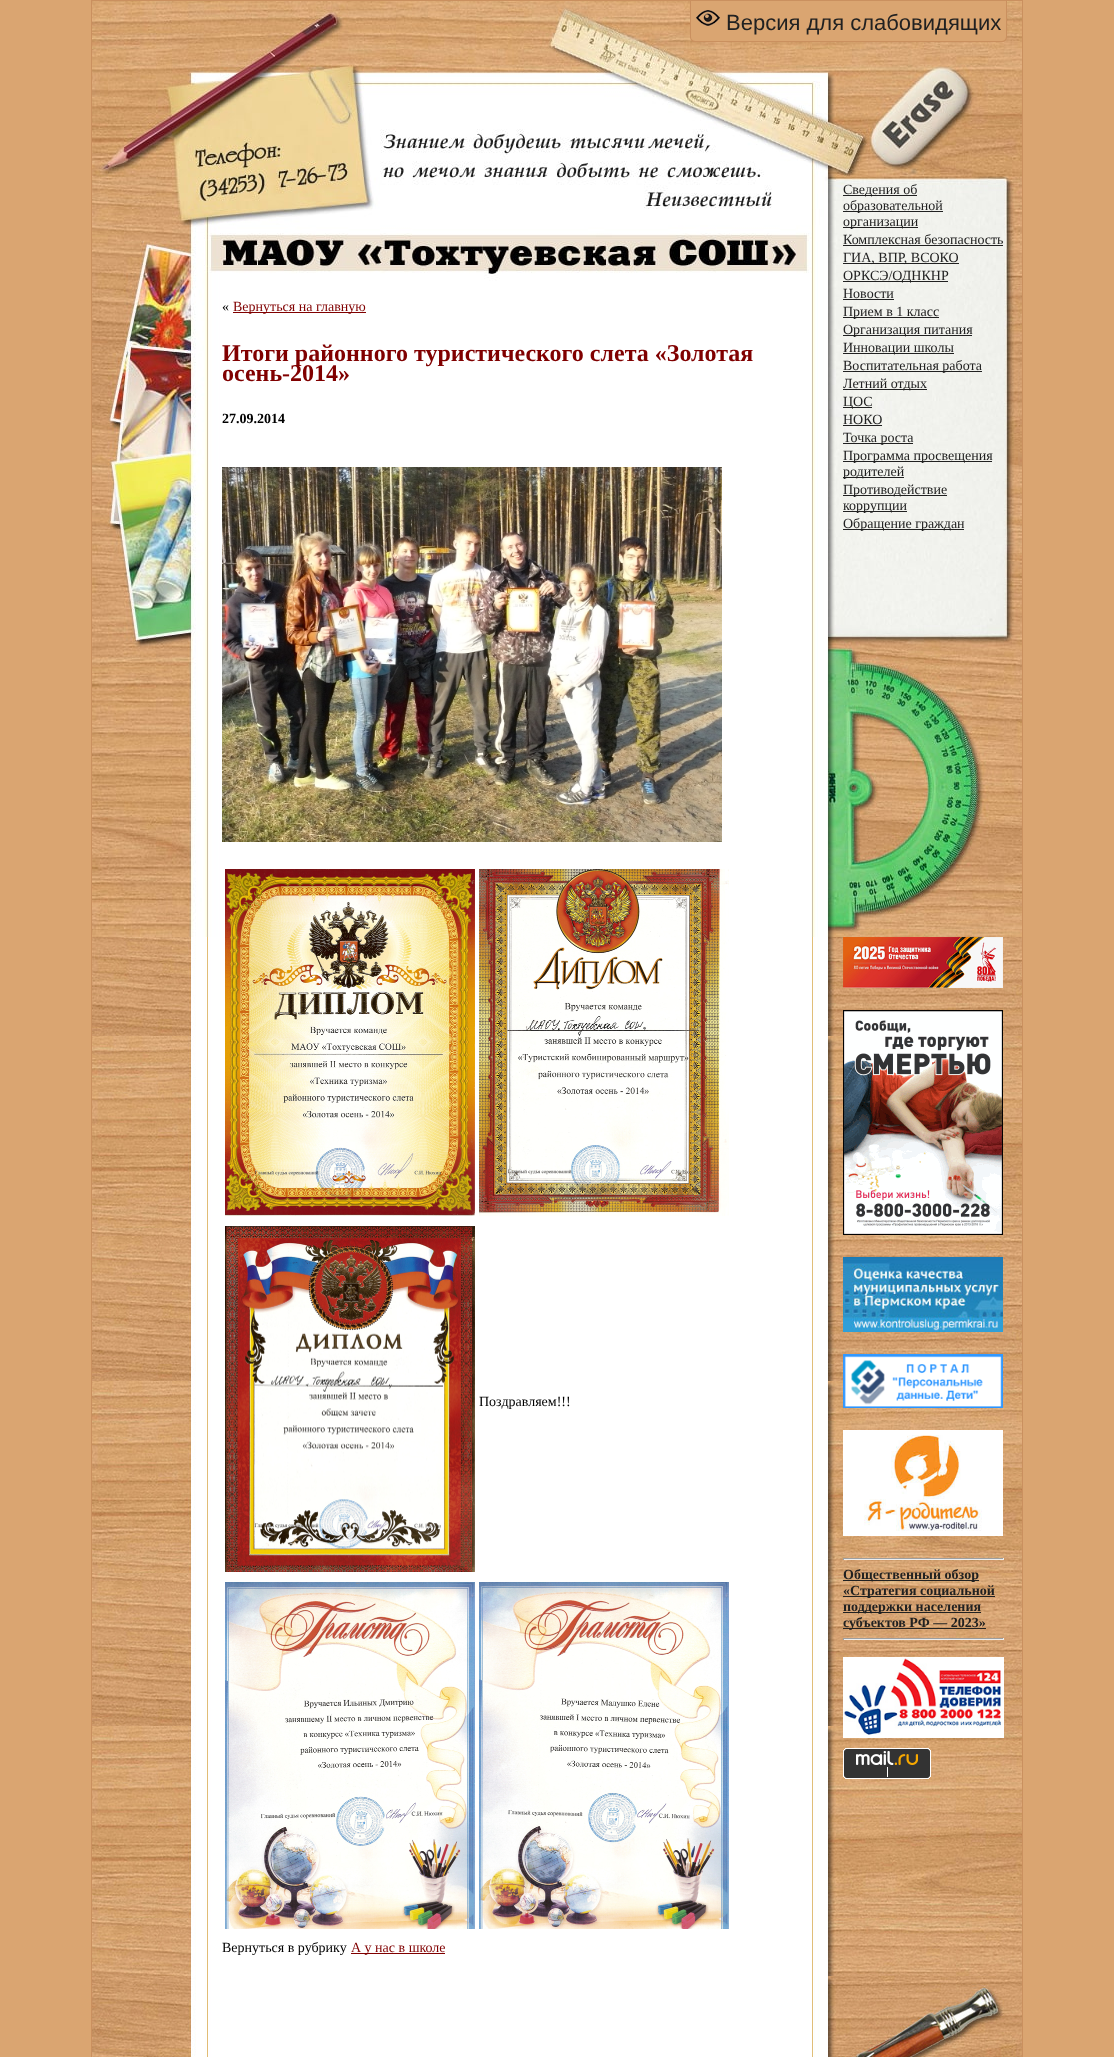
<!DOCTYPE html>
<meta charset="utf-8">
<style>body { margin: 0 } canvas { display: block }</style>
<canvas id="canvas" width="1114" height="2057"></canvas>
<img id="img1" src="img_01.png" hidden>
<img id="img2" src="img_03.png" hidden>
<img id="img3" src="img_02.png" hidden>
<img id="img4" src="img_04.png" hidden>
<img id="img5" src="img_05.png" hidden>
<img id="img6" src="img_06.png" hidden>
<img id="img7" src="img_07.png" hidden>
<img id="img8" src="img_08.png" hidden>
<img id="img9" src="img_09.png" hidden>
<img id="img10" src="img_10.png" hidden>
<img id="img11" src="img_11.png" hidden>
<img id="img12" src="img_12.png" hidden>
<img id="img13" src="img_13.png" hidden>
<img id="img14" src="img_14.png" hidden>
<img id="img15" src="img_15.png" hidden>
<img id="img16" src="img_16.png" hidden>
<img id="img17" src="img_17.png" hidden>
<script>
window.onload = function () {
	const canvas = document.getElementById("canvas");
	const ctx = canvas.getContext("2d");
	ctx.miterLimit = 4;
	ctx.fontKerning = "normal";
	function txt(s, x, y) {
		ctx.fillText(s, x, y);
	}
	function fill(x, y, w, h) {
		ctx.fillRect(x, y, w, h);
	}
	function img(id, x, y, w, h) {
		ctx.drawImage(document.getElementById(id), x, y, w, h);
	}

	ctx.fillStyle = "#DAA571";
	fill(0, 0, 1114, 2057);
	img("img1", 92, 937, 930, 1039);
	ctx.strokeStyle = "#CA905F";
	ctx.strokeRect(91.5, 0.5, 931, 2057);
	img("img2", 92, 1, 930, 936);
	ctx.beginPath();
	ctx.roundRect(691, 1, 315, 40, [0, 0, 4, 4]);
	ctx.fill();
	ctx.fillStyle = "#CA905F";
	ctx.beginPath();
	ctx.moveTo(690, 1);
	ctx.lineTo(1007, 1);
	ctx.lineTo(1007, 37);
	ctx.bezierCurveTo(1007, 40, 1005, 42, 1002, 42);
	ctx.lineTo(695, 42);
	ctx.bezierCurveTo(692, 42, 690, 40, 690, 37);
	ctx.closePath();
	ctx.moveTo(691, 1);
	ctx.lineTo(1006, 1);
	ctx.lineTo(1006, 37);
	ctx.bezierCurveTo(1006, 39, 1004, 41, 1002, 41);
	ctx.lineTo(695, 41);
	ctx.bezierCurveTo(693, 41, 691, 39, 691, 37);
	ctx.closePath();
	ctx.fill("evenodd");
	img("img3", 696, 10, 24, 16);
	ctx.fillStyle = "#800000";
	fill(233, 312, 133, 1);
	img("img4", 222, 467, 500, 375);
	img("img5", 225, 869, 250, 347);
	img("img6", 479, 869, 250, 347);
	img("img7", 225, 1226, 250, 346);
	img("img8", 225, 1582, 250, 347);
	img("img9", 479, 1582, 250, 347);
	fill(351, 1953, 94, 1);
	ctx.fillStyle = "#212121";
	fill(843, 195, 74, 1);
	fill(843, 211, 100, 1);
	fill(843, 227, 75, 1);
	fill(843, 245, 160, 1);
	fill(843, 263, 116, 1);
	fill(843, 281, 105, 1);
	fill(843, 299, 51, 1);
	fill(843, 317, 96, 1);
	fill(843, 335, 129, 1);
	fill(843, 353, 111, 1);
	fill(843, 371, 139, 1);
	fill(843, 389, 84, 1);
	fill(843, 407, 29, 1);
	fill(843, 425, 39, 1);
	fill(843, 443, 70, 1);
	fill(843, 461, 149, 1);
	fill(843, 477, 61, 1);
	fill(843, 495, 104, 1);
	fill(843, 511, 64, 1);
	fill(843, 529, 121, 1);
	img("img10", 843, 937, 160, 51);
	img("img11", 843, 1010, 160, 225);
	img("img12", 843, 1257, 160, 75);
	img("img13", 843, 1354, 160, 54);
	img("img14", 843, 1430, 160, 106);
	ctx.fillStyle = "#9F9F9F";
	fill(843, 1558, 161, 1);
	ctx.fillStyle = "#EEEEEE";
	fill(1003, 1558, 1, 2);
	fill(843, 1559, 161, 1);
	ctx.fillStyle = "#9F9F9F";
	fill(843, 1558, 1, 2);
	ctx.fillStyle = "#212121";
	fill(843, 1580, 136, 1);
	fill(843, 1596, 152, 1);
	fill(843, 1612, 138, 1);
	fill(843, 1628, 143, 1);
	ctx.fillStyle = "#9F9F9F";
	fill(843, 1638, 161, 1);
	ctx.fillStyle = "#EEEEEE";
	fill(1003, 1638, 1, 2);
	fill(843, 1639, 161, 1);
	ctx.fillStyle = "#9F9F9F";
	fill(843, 1638, 1, 2);
	img("img15", 843, 1657, 161, 81);
	img("img16", 843, 1748, 88, 31);
	img("img17", 92, 1976, 930, 81);
	ctx.font = "22px Liberation Sans";
	ctx.fillStyle = "#212121";
	txt("Версия для слабовидящих", 726, 30);
	ctx.font = "14px Liberation Serif";
	ctx.fillStyle = "#000000";
	txt("«", 222, 311);
	ctx.fillStyle = "#800000";
	txt("Вернуться на главную", 233, 311);
	ctx.font = "bold 24px Liberation Serif";
	txt("Итоги районного туристического слета «Золотая", 222, 361);
	txt("осень-2014»", 222, 381);
	ctx.font = "bold 14px Liberation Serif";
	ctx.fillStyle = "#000000";
	txt("27.09.2014", 222, 423);
	ctx.font = "14px Liberation Serif";
	txt("Поздравляем!!!", 479, 1406);
	txt("Вернуться в рубрику", 222, 1952);
	ctx.fillStyle = "#800000";
	txt("А у нас в школе", 351, 1952);
	ctx.fillStyle = "#212121";
	txt("Сведения об", 843, 194);
	txt("образовательной", 843, 210);
	txt("организации", 843, 226);
	txt("Комплексная безопасность", 843, 244);
	txt("ГИА, ВПР, ВСОКО", 843, 262);
	txt("ОРКСЭ/ОДНКНР", 843, 280);
	txt("Новости", 843, 298);
	txt("Прием в 1 класс", 843, 316);
	txt("Организация питания", 843, 334);
	txt("Инновации школы", 843, 352);
	txt("Воспитательная работа", 843, 370);
	txt("Летний отдых", 843, 388);
	txt("ЦОС", 843, 406);
	txt("НОКО", 843, 424);
	txt("Точка роста", 843, 442);
	txt("Программа просвещения", 843, 460);
	txt("родителей", 843, 476);
	txt("Противодействие", 843, 494);
	txt("коррупции", 843, 510);
	txt("Обращение граждан", 843, 528);
	ctx.font = "bold 14px Liberation Serif";
	txt("Общественный обзор", 843, 1579);
	txt("«Стратегия социальной", 843, 1595);
	txt("поддержки населения", 843, 1611);
	txt("субъектов РФ — 2023»", 843, 1627);
};
</script>
